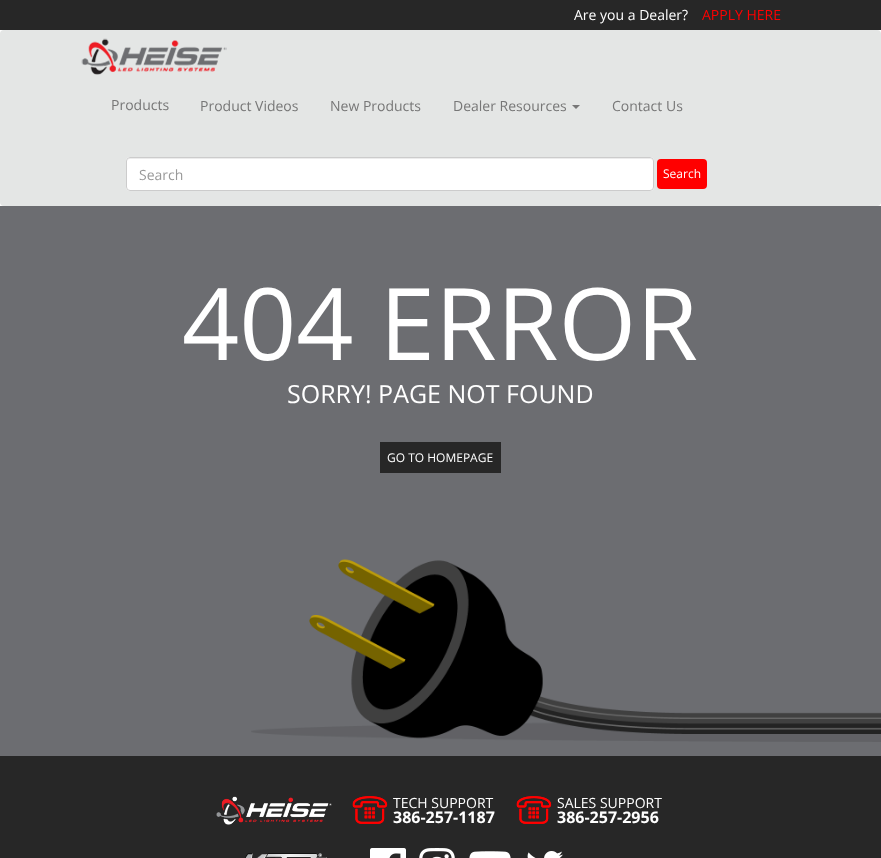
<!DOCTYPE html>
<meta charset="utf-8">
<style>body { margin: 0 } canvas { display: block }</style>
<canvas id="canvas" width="881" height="858"></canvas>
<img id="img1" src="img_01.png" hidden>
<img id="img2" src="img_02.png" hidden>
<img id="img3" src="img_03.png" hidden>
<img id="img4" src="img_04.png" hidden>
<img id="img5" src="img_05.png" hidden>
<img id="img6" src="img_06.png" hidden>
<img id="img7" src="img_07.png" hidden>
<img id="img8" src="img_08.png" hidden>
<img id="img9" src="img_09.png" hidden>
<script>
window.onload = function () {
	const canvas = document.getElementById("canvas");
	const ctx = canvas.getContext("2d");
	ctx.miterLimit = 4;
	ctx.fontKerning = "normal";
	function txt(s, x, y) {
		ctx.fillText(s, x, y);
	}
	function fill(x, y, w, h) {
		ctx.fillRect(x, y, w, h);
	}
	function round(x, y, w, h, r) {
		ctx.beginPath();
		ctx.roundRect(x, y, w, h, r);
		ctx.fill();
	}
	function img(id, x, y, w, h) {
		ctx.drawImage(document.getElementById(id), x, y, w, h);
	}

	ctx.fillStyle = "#FFFFFF";
	fill(0, 0, 881, 858);
	ctx.fillStyle = "#272727";
	fill(0, 0, 881, 30);
	ctx.fillStyle = "#E4E6E5";
	round(0, 30, 881, 176, 4);
	img("img1", 81, 38, 146, 37);
	ctx.fillStyle = "#777777";
	ctx.beginPath();
	ctx.moveTo(572, 105);
	ctx.lineTo(580, 105);
	ctx.lineTo(576, 109);
	ctx.closePath();
	ctx.fill();
	ctx.fillStyle = "#FFFFFF";
	round(126, 157, 528, 34, 4);
	ctx.fillStyle = "#ECECEC";
	ctx.beginPath();
	ctx.moveTo(130, 159);
	ctx.lineTo(650, 159);
	ctx.bezierCurveTo(652, 159, 653, 160, 653, 162);
	ctx.lineTo(652, 159);
	ctx.lineTo(650, 158);
	ctx.lineTo(130, 158);
	ctx.bezierCurveTo(128, 158, 127, 160, 127, 162);
	ctx.bezierCurveTo(127, 160, 128, 159, 130, 159);
	ctx.closePath();
	ctx.fill();
	ctx.beginPath();
	ctx.roundRect(126.5, 157.5, 527, 33, 3.5);
	ctx.strokeStyle = "#CCCCCC";
	ctx.stroke();
	ctx.fillStyle = "#FF0000";
	round(657, 159, 50, 30, 4);
	ctx.fillStyle = "#6C6D71";
	fill(0, 206, 881, 550);
	img("img2", 251, 559, 630, 183);
	ctx.fillStyle = "#272727";
	fill(380, 442, 121, 31);
	fill(0, 756, 881, 102);
	img("img3", 216, 796, 116, 29);
	img("img4", 352, 796, 36, 28);
	img("img4", 516, 796, 36, 28);
	img("img5", 245, 853, 82, 5);
	img("img6", 370, 848, 36, 10);
	img("img7", 419, 848, 36, 10);
	img("img8", 469, 851, 42, 7);
	img("img9", 527, 851, 36, 7);
	ctx.font = "14px Open Sans";
	ctx.fillStyle = "#FFFFFF";
	txt("Are you a Dealer?", 574, 20);
	ctx.fillStyle = "#FF0000";
	txt("APPLY HERE", 702, 20);
	ctx.fillStyle = "#777777";
	txt("Products", 111, 110);
	txt("Product Videos", 200, 111);
	txt("New Products", 330, 111);
	txt("Dealer Resources", 453, 111);
	txt("Contact Us", 612, 111);
	ctx.fillStyle = "#999999";
	txt("Search", 139, 180);
	ctx.font = "12px Open Sans";
	ctx.fillStyle = "#FFFFFF";
	txt("Search", 663, 178);
	ctx.font = "100px Open Sans";
	txt("404 ERROR", 182, 360);
	ctx.font = "25px Open Sans";
	txt("SORRY! PAGE NOT FOUND", 287, 403);
	ctx.font = "12px Open Sans";
	txt("GO TO HOMEPAGE", 387, 462);
	ctx.font = "14px Open Sans";
	txt("TECH SUPPORT", 393, 808);
	ctx.font = "bold 16px Open Sans";
	txt("386-257-1187", 393, 823);
	ctx.font = "14px Open Sans";
	txt("SALES SUPPORT", 557, 808);
	ctx.font = "bold 16px Open Sans";
	txt("386-257-2956", 557, 823);
};
</script>
